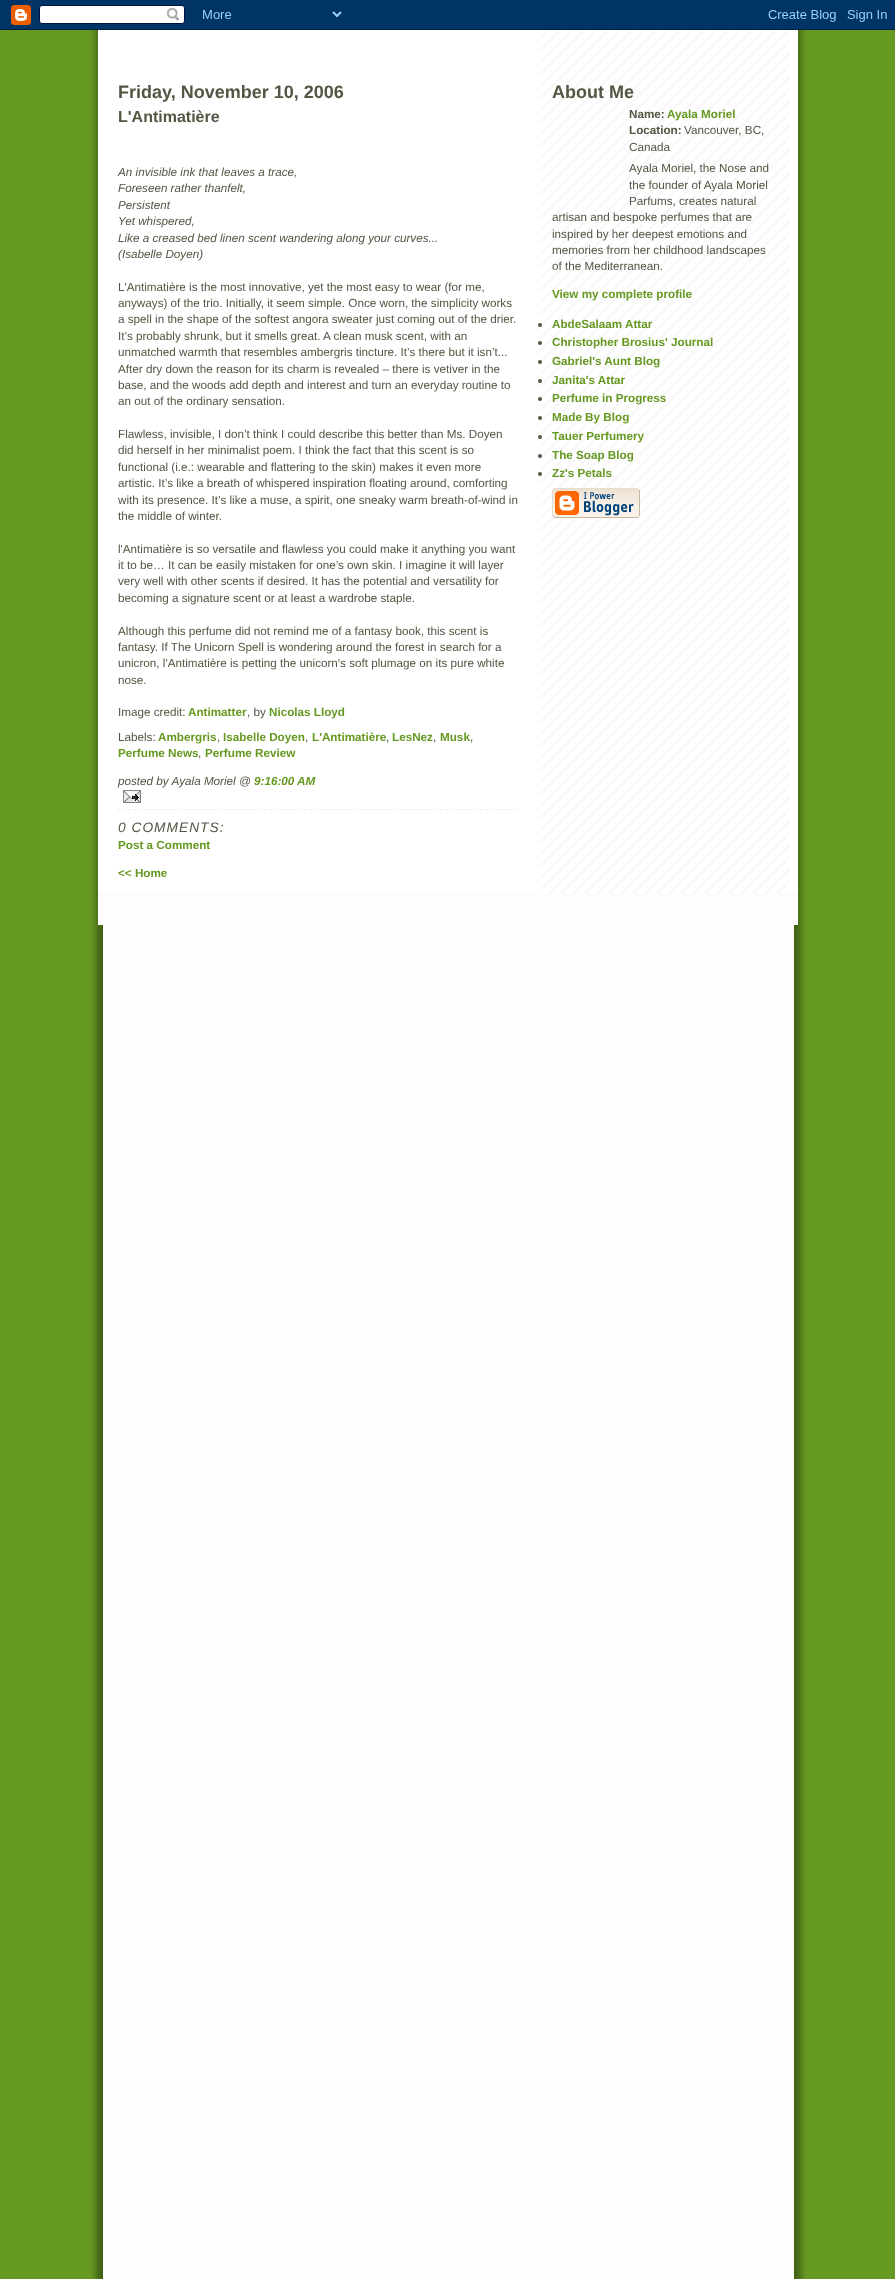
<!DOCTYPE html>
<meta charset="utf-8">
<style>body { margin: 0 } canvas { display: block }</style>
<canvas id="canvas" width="895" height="2279"></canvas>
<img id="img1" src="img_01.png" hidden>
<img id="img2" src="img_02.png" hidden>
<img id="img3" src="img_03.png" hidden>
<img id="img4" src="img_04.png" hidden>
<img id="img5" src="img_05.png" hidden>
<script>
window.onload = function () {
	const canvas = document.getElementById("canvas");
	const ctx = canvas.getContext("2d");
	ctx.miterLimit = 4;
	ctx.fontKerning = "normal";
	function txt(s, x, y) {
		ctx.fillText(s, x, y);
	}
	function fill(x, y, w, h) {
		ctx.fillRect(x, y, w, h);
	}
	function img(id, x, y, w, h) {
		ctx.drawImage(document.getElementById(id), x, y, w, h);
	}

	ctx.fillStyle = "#669922";
	fill(0, 0, 895, 2279);
	img("img1", 91, 30, 715, 2249);
	img("img2", 0, 0, 895, 30);
	ctx.fillStyle = "#FFFFFF";
	fill(98, 30, 700, 863);
	img("img3", 540, 30, 250, 863);
	img("img4", 123, 790, 18, 13);
	ctx.beginPath();
	ctx.moveTo(118, 809.5);
	ctx.lineTo(518, 809.5);
	ctx.strokeStyle = "#EEEEDD";
	ctx.setLineDash([3, 2.03]);
	ctx.stroke();
	ctx.fillStyle = "#555544";
	ctx.beginPath();
	ctx.arc(540, 325, 2, 0, Math.PI * 2);
	ctx.fill();
	ctx.beginPath();
	ctx.arc(540, 343, 2, 0, Math.PI * 2);
	ctx.fill();
	ctx.beginPath();
	ctx.arc(540, 362, 2, 0, Math.PI * 2);
	ctx.fill();
	ctx.beginPath();
	ctx.arc(540, 381, 2, 0, Math.PI * 2);
	ctx.fill();
	ctx.beginPath();
	ctx.arc(540, 399, 2, 0, Math.PI * 2);
	ctx.fill();
	ctx.beginPath();
	ctx.arc(540, 418, 2, 0, Math.PI * 2);
	ctx.fill();
	ctx.beginPath();
	ctx.arc(540, 437, 2, 0, Math.PI * 2);
	ctx.fill();
	ctx.beginPath();
	ctx.arc(540, 456, 2, 0, Math.PI * 2);
	ctx.fill();
	ctx.beginPath();
	ctx.arc(540, 474, 2, 0, Math.PI * 2);
	ctx.fill();
	img("img5", 552, 488, 88, 30);
	ctx.fillStyle = "#FDFDFD";
	fill(98, 894, 700, 31);
	ctx.fillStyle = "#F9F9F9";
	fill(98, 893, 700, 1);
	ctx.font = "bold 18px Liberation Sans";
	ctx.fillStyle = "#555544";
	txt("Friday, November 10, 2006", 118, 98);
	ctx.font = "bold 16px Liberation Sans";
	txt("L'Antimatière", 118, 122);
	ctx.font = "italic 11.7px Liberation Sans";
	txt("An invisible ink that leaves a trace,", 118, 176);
	txt("Foreseen rather thanfelt,", 118, 192);
	txt("Persistent", 118, 209);
	txt("Yet whispered,", 118, 225);
	txt("Like a creased bed linen scent wandering along your curves...", 118, 242);
	txt("(Isabelle Doyen)", 118, 258);
	ctx.font = "11.7px Liberation Sans";
	txt("L'Antimatière is the most innovative, yet the most easy to wear (for me,", 118, 291);
	txt("anyways) of the trio. Initially, it seem simple. Once worn, the simplicity works", 118, 307);
	txt("a spell in the shape of the softest angora sweater just coming out of the drier.", 118, 323);
	txt("It’s probably shrunk, but it smells great. A clean musk scent, with an", 118, 340);
	txt("unmatched warmth that resembles ambergris tincture. It’s there but it isn’t...", 118, 356);
	txt("After dry down the reason for its charm is revealed – there is vetiver in the", 118, 373);
	txt("base, and the woods add depth and interest and turn an everyday routine to", 118, 389);
	txt("an out of the ordinary sensation.", 118, 405);
	txt("Flawless, invisible, I don’t think I could describe this better than Ms. Doyen", 118, 438);
	txt("did herself in her minimalist poem. I think the fact that this scent is so", 118, 454);
	txt("functional (i.e.: wearable and flattering to the skin) makes it even more", 118, 471);
	txt("artistic. It’s like a breath of whispered inspiration floating around, comforting", 118, 487);
	txt("with its presence. It’s like a muse, a spirit, one sneaky warm breath-of-wind in", 118, 504);
	txt("the middle of winter.", 118, 520);
	txt("l'Antimatière is so versatile and flawless you could make it anything you want", 118, 553);
	txt("it to be… It can be easily mistaken for one’s own skin. I imagine it will layer", 118, 569);
	txt("very well with other scents if desired. It has the potential and versatility for", 118, 585);
	txt("becoming a signature scent or at least a wardrobe staple.", 118, 602);
	txt("Although this perfume did not remind me of a fantasy book, this scent is", 118, 635);
	txt("fantasy. If The Unicorn Spell is wondering around the forest in search for a", 118, 651);
	txt("unicron, l'Antimatière is petting the unicorn's soft plumage on its pure white", 118, 667);
	txt("nose.", 118, 684);
	txt("Image credit:", 118, 716);
	ctx.font = "bold 11.7px Liberation Sans";
	ctx.fillStyle = "#669922";
	txt("Antimatter", 188, 716);
	ctx.font = "11.7px Liberation Sans";
	ctx.fillStyle = "#555544";
	txt(", by", 247, 716);
	ctx.font = "bold 11.7px Liberation Sans";
	ctx.fillStyle = "#669922";
	txt("Nicolas Lloyd", 269, 716);
	ctx.font = "11.7px Liberation Sans";
	ctx.fillStyle = "#555544";
	txt("Labels:", 118, 741);
	ctx.font = "bold 11.7px Liberation Sans";
	ctx.fillStyle = "#669922";
	txt("Ambergris", 158, 741);
	ctx.font = "11.7px Liberation Sans";
	ctx.fillStyle = "#555544";
	txt(",", 217, 741);
	ctx.font = "bold 11.7px Liberation Sans";
	ctx.fillStyle = "#669922";
	txt("Isabelle Doyen", 223, 741);
	ctx.font = "11.7px Liberation Sans";
	ctx.fillStyle = "#555544";
	txt(",", 305, 741);
	ctx.font = "bold 11.7px Liberation Sans";
	ctx.fillStyle = "#669922";
	txt("L'Antimatière", 312, 741);
	ctx.font = "11.7px Liberation Sans";
	ctx.fillStyle = "#555544";
	txt(",", 386, 741);
	ctx.font = "bold 11.7px Liberation Sans";
	ctx.fillStyle = "#669922";
	txt("LesNez", 392, 741);
	ctx.font = "11.7px Liberation Sans";
	ctx.fillStyle = "#555544";
	txt(",", 433, 741);
	ctx.font = "bold 11.7px Liberation Sans";
	ctx.fillStyle = "#669922";
	txt("Musk", 440, 741);
	ctx.font = "11.7px Liberation Sans";
	ctx.fillStyle = "#555544";
	txt(",", 470, 741);
	ctx.font = "bold 11.7px Liberation Sans";
	ctx.fillStyle = "#669922";
	txt("Perfume News", 118, 757);
	ctx.font = "11.7px Liberation Sans";
	ctx.fillStyle = "#555544";
	txt(",", 198, 757);
	ctx.font = "bold 11.7px Liberation Sans";
	ctx.fillStyle = "#669922";
	txt("Perfume Review", 205, 757);
	ctx.font = "italic 11.7px Liberation Sans";
	ctx.fillStyle = "#555544";
	txt("posted by Ayala Moriel @", 118, 785);
	ctx.font = "italic bold 11.7px Liberation Sans";
	ctx.fillStyle = "#669922";
	txt("9:16:00 AM", 254, 785);
	ctx.letterSpacing = "1px";
	ctx.font = "italic 13.75px Liberation Sans";
	ctx.fillStyle = "#555544";
	txt("0 COMMENTS:", 118, 832);
	ctx.letterSpacing = "0px";
	ctx.font = "bold 11.7px Liberation Sans";
	ctx.fillStyle = "#669922";
	txt("Post a Comment", 118, 849);
	txt("<< Home", 118, 877);
	ctx.font = "bold 18px Liberation Sans";
	ctx.fillStyle = "#555544";
	txt("About Me", 552, 98);
	ctx.font = "bold 11.7px Liberation Sans";
	txt("Name:", 629, 118);
	ctx.fillStyle = "#669922";
	txt("Ayala Moriel", 667, 118);
	ctx.fillStyle = "#555544";
	txt("Location:", 629, 134);
	ctx.font = "11.7px Liberation Sans";
	txt("Vancouver, BC,", 684, 134);
	txt("Canada", 629, 151);
	txt("Ayala Moriel, the Nose and", 629, 172);
	txt("the founder of Ayala Moriel", 629, 189);
	txt("Parfums, creates natural", 629, 205);
	txt("artisan and bespoke perfumes that are", 552, 221);
	txt("inspired by her deepest emotions and", 552, 238);
	txt("memories from her childhood landscapes", 552, 254);
	txt("of the Mediterranean.", 552, 270);
	ctx.font = "bold 11.7px Liberation Sans";
	ctx.fillStyle = "#669922";
	txt("View my complete profile", 552, 298);
	txt("AbdeSalaam Attar", 552, 328);
	txt("Christopher Brosius' Journal", 552, 346);
	txt("Gabriel's Aunt Blog", 552, 365);
	txt("Janita's Attar", 552, 384);
	txt("Perfume in Progress", 552, 402);
	txt("Made By Blog", 552, 421);
	txt("Tauer Perfumery", 552, 440);
	txt("The Soap Blog", 552, 459);
	txt("Zz's Petals", 552, 477);
};
</script>
